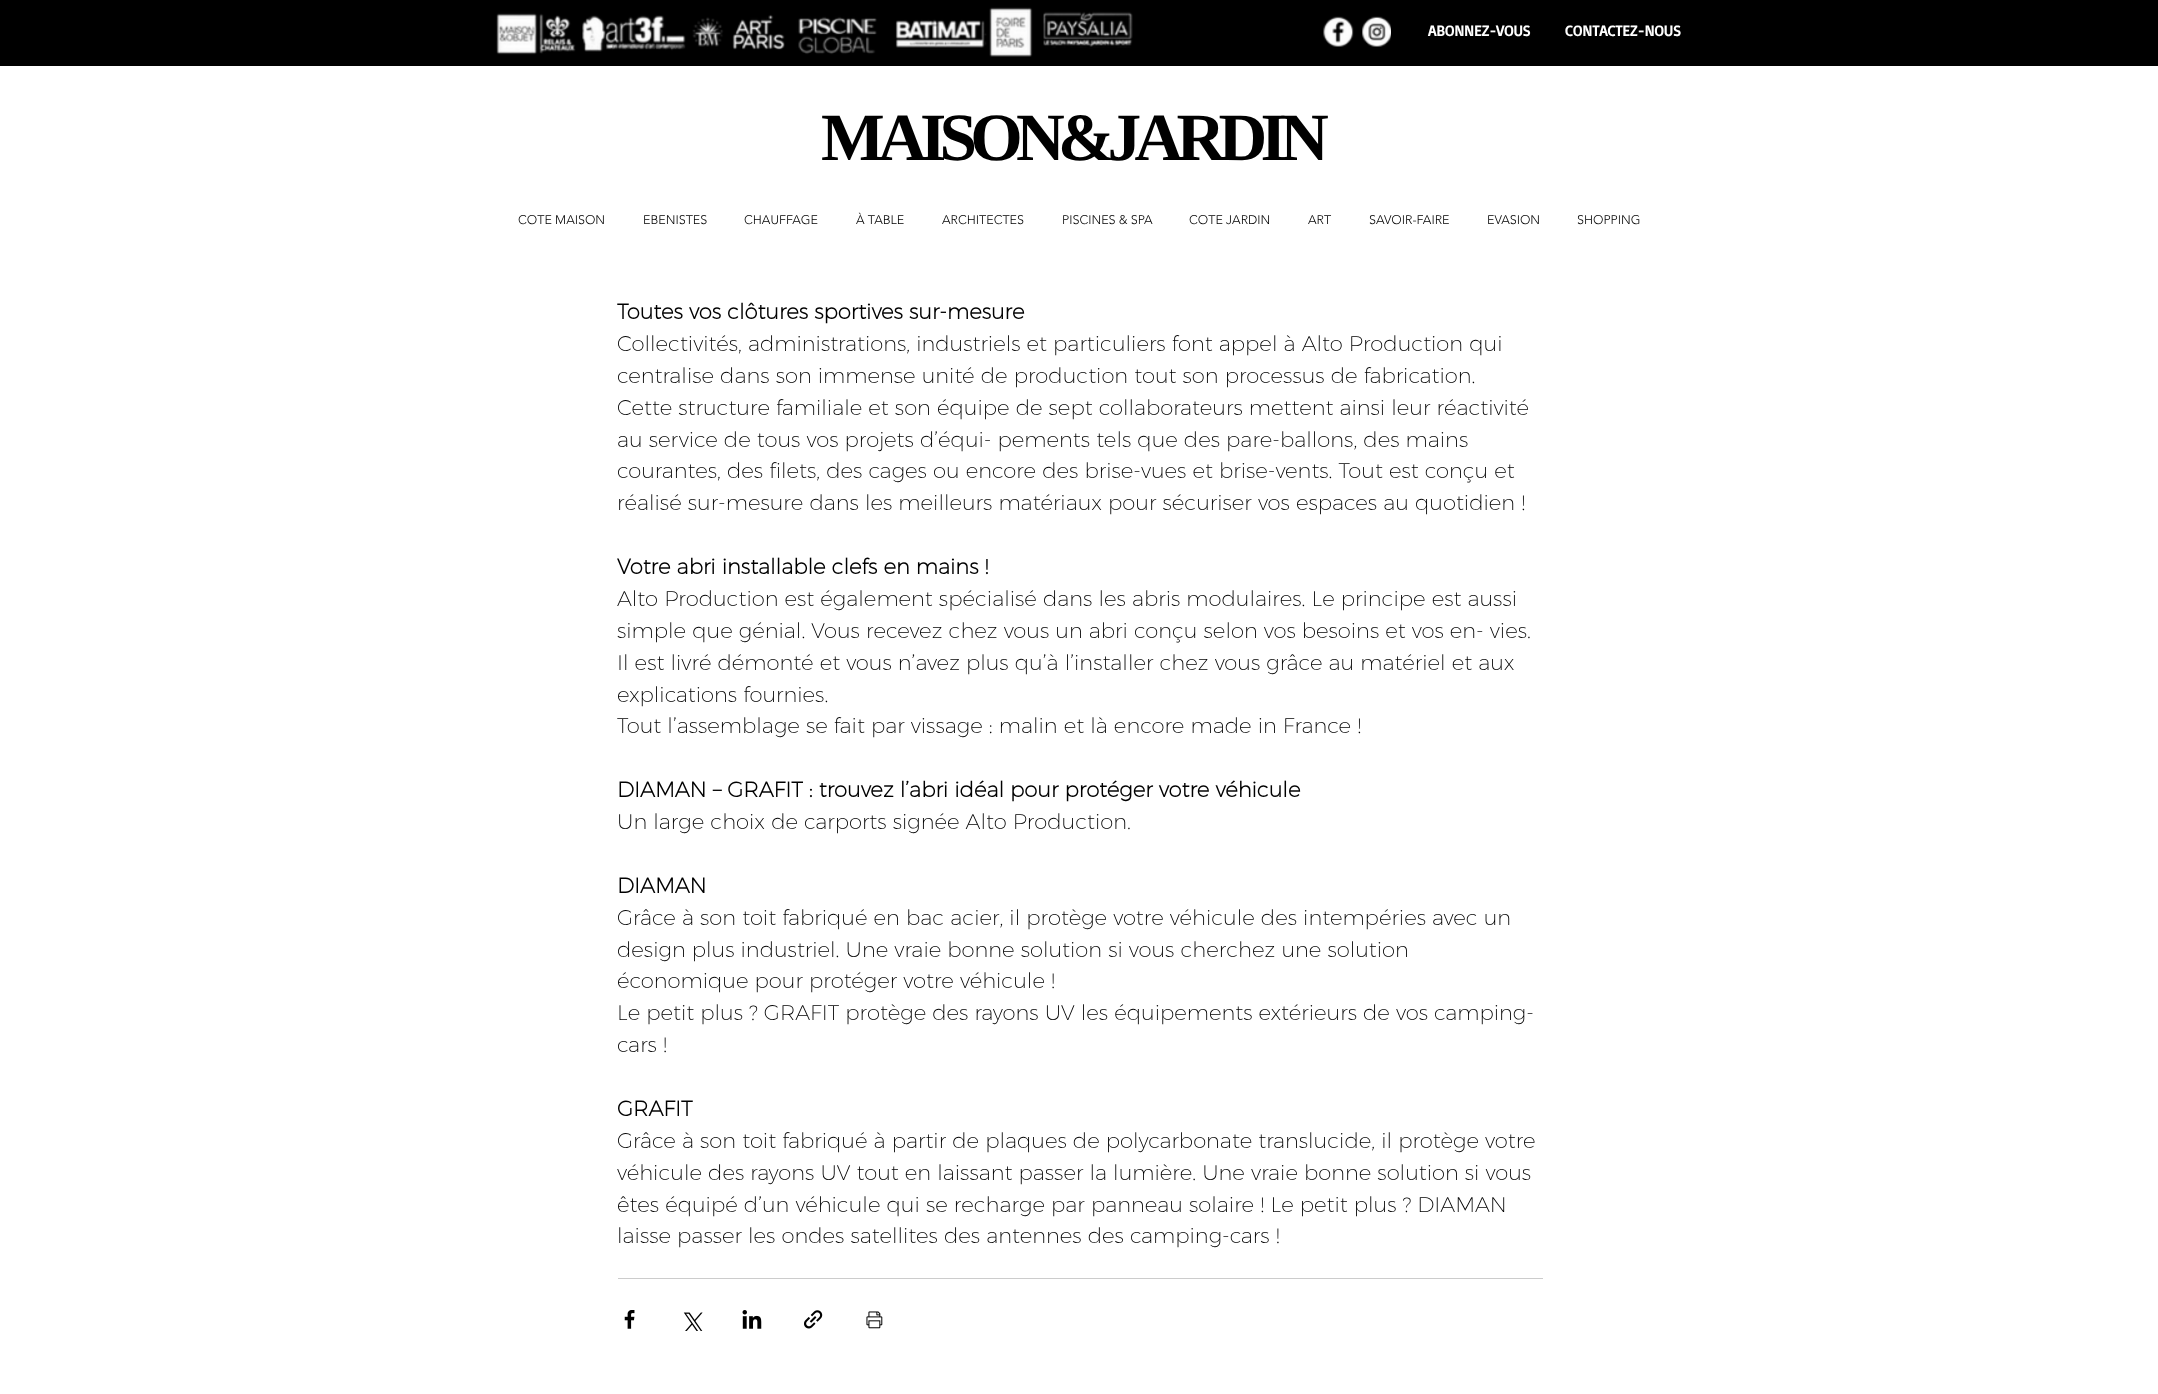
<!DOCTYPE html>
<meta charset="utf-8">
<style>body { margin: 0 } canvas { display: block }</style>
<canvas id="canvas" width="2158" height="1394"></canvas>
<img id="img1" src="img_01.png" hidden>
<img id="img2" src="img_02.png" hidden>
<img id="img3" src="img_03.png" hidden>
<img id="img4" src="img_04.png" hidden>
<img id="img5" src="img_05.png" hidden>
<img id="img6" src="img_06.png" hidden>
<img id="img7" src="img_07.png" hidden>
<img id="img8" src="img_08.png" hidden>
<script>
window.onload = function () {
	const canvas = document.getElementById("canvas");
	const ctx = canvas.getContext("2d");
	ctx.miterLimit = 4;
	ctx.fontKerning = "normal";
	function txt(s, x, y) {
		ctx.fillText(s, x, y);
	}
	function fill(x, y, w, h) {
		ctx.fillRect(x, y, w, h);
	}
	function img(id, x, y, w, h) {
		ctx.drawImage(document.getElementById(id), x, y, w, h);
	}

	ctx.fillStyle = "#FFFFFF";
	fill(0, 0, 2158, 1394);
	ctx.fillStyle = "#000000";
	fill(0, 0, 2158, 66);
	img("img1", 496, 7, 637, 50);
	img("img2", 1323, 16, 31, 31);
	img("img3", 1362, 16, 29, 31);
	ctx.fillStyle = "#CCCCCC";
	fill(618, 1278, 925, 1);
	img("img4", 624, 1310, 11, 19);
	img("img5", 683, 1312, 20, 19);
	img("img6", 742, 1310, 20, 19);
	img("img7", 804, 1310, 19, 19);
	img("img8", 866, 1311, 17, 18);
	ctx.font = "bold 15px Basic";
	ctx.fillStyle = "#FFFFFF";
	txt("ABONNEZ-VOUS", 1428, 36);
	txt("CONTACTEZ-NOUS", 1565, 36);
	ctx.letterSpacing = "-6.75px";
	ctx.font = "bold 67.5px Liberation Serif";
	ctx.fillStyle = "#000000";
	txt("MAISON&JARDIN", 821, 160);
	ctx.letterSpacing = "0px";
	ctx.font = "300 12.5px 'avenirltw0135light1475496'";
	txt("COTE MAISON", 518, 224);
	txt("EBENISTES", 643, 224);
	txt("CHAUFFAGE", 744, 224);
	txt("À TABLE", 856, 224);
	txt("ARCHITECTES", 942, 224);
	txt("PISCINES & SPA", 1062, 224);
	txt("COTE JARDIN", 1189, 224);
	txt("ART", 1308, 224);
	txt("SAVOIR-FAIRE", 1369, 224);
	txt("EVASION", 1487, 224);
	txt("SHOPPING", 1577, 224);
	ctx.font = "bold 21.25px Montserrat";
	txt("Toutes vos clôtures sportives sur-mesure", 617, 319);
	ctx.font = "200 21.25px Montserrat";
	txt("Collectivités, administrations, industriels et particuliers font appel à Alto Production qui", 617, 351);
	txt("centralise dans son immense unité de production tout son processus de fabrication.", 617, 383);
	txt("Cette structure familiale et son équipe de sept collaborateurs mettent ainsi leur réactivité", 617, 415);
	txt("au service de tous vos projets d’équi- pements tels que des pare-ballons, des mains", 617, 447);
	txt("courantes, des filets, des cages ou encore des brise-vues et brise-vents. Tout est conçu et", 617, 478);
	txt("réalisé sur-mesure dans les meilleurs matériaux pour sécuriser vos espaces au quotidien !", 617, 510);
	ctx.font = "bold 21.25px Montserrat";
	txt("Votre abri installable clefs en mains !", 617, 574);
	ctx.font = "200 21.25px Montserrat";
	txt("Alto Production est également spécialisé dans les abris modulaires. Le principe est aussi", 617, 606);
	txt("simple que génial. Vous recevez chez vous un abri conçu selon vos besoins et vos en- vies.", 617, 638);
	txt("Il est livré démonté et vous n’avez plus qu’à l’installer chez vous grâce au matériel et aux", 617, 670);
	txt("explications fournies.", 617, 702);
	txt("Tout l’assemblage se fait par vissage : malin et là encore made in France !", 617, 733);
	ctx.font = "bold 21.25px Montserrat";
	txt("DIAMAN – GRAFIT : trouvez l’abri idéal pour protéger votre véhicule", 617, 797);
	ctx.font = "200 21.25px Montserrat";
	txt("Un large choix de carports signée Alto Production.", 617, 829);
	ctx.font = "bold 21.25px Montserrat";
	txt("DIAMAN", 617, 893);
	ctx.font = "200 21.25px Montserrat";
	txt("Grâce à son toit fabriqué en bac acier, il protège votre véhicule des intempéries avec un", 617, 925);
	txt("design plus industriel. Une vraie bonne solution si vous cherchez une solution", 617, 957);
	txt("économique pour protéger votre véhicule !", 617, 988);
	txt("Le petit plus ? GRAFIT protège des rayons UV les équipements extérieurs de vos camping-", 617, 1020);
	txt("cars !", 617, 1052);
	ctx.font = "bold 21.25px Montserrat";
	txt("GRAFIT", 617, 1116);
	ctx.font = "200 21.25px Montserrat";
	txt("Grâce à son toit fabriqué à partir de plaques de polycarbonate translucide, il protège votre", 617, 1148);
	txt("véhicule des rayons UV tout en laissant passer la lumière. Une vraie bonne solution si vous", 617, 1180);
	txt("êtes équipé d’un véhicule qui se recharge par panneau solaire ! Le petit plus ? DIAMAN", 617, 1212);
	txt("laisse passer les ondes satellites des antennes des camping-cars !", 617, 1243);
};
</script>
